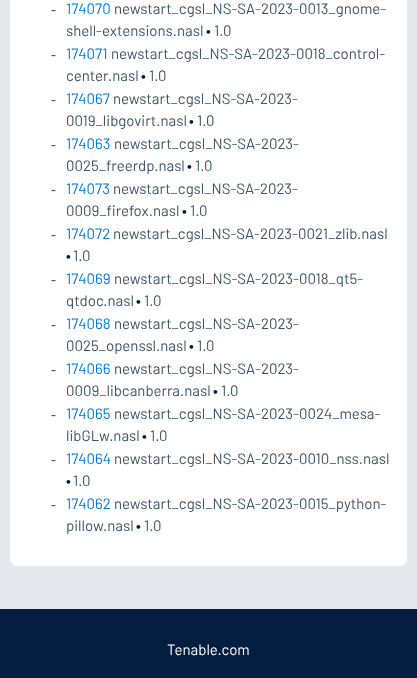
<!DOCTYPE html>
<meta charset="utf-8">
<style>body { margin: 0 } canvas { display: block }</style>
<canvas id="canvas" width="417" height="678"></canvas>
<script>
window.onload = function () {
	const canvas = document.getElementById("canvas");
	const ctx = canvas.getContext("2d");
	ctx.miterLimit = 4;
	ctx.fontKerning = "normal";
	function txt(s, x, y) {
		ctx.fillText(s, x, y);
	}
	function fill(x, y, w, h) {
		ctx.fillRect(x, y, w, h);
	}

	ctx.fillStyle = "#E5E9ED";
	fill(0, 0, 417, 678);
	ctx.fillStyle = "#FFFFFF";
	ctx.beginPath();
	ctx.roundRect(10.5, -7.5, 396, 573, 6.5);
	ctx.fill();
	ctx.strokeStyle = "#FFFFFF";
	ctx.stroke();
	ctx.fillStyle = "#041E42";
	fill(0, 609, 417, 69);
	ctx.font = "15px Barlow";
	ctx.fillStyle = "#415465";
	txt("‑", 51, 14);
	ctx.fillStyle = "#0079DD";
	txt("174070", 66, 14);
	ctx.fillStyle = "#415465";
	txt("newstart_cgsl_NS-SA-2023-0013_gnome-", 114, 14);
	txt("shell-extensions.nasl", 66, 36);
	ctx.font = "bold 15px Barlow";
	ctx.fillStyle = "#041E42";
	txt("•", 206, 36);
	ctx.font = "15px Barlow";
	ctx.fillStyle = "#415465";
	txt("1.0", 214, 36);
	txt("‑", 51, 59);
	ctx.fillStyle = "#0079DD";
	txt("174071", 66, 59);
	ctx.fillStyle = "#415465";
	txt("newstart_cgsl_NS-SA-2023-0018_control-", 111, 59);
	txt("center.nasl", 66, 81);
	ctx.font = "bold 15px Barlow";
	ctx.fillStyle = "#041E42";
	txt("•", 141, 81);
	ctx.font = "15px Barlow";
	ctx.fillStyle = "#415465";
	txt("1.0", 149, 81);
	txt("‑", 51, 104);
	ctx.fillStyle = "#0079DD";
	txt("174067", 66, 104);
	ctx.fillStyle = "#415465";
	txt("newstart_cgsl_NS-SA-2023-", 113, 104);
	txt("0019_libgovirt.nasl", 66, 126);
	ctx.font = "bold 15px Barlow";
	ctx.fillStyle = "#041E42";
	txt("•", 189, 126);
	ctx.font = "15px Barlow";
	ctx.fillStyle = "#415465";
	txt("1.0", 197, 126);
	txt("‑", 51, 149);
	ctx.fillStyle = "#0079DD";
	txt("174063", 66, 149);
	ctx.fillStyle = "#415465";
	txt("newstart_cgsl_NS-SA-2023-", 114, 149);
	txt("0025_freerdp.nasl", 66, 171);
	ctx.font = "bold 15px Barlow";
	ctx.fillStyle = "#041E42";
	txt("•", 187, 171);
	ctx.font = "15px Barlow";
	ctx.fillStyle = "#415465";
	txt("1.0", 195, 171);
	txt("‑", 51, 194);
	ctx.fillStyle = "#0079DD";
	txt("174073", 66, 194);
	ctx.fillStyle = "#415465";
	txt("newstart_cgsl_NS-SA-2023-", 113, 194);
	txt("0009_firefox.nasl", 66, 216);
	ctx.font = "bold 15px Barlow";
	ctx.fillStyle = "#041E42";
	txt("•", 182, 216);
	ctx.font = "15px Barlow";
	ctx.fillStyle = "#415465";
	txt("1.0", 190, 216);
	txt("‑", 51, 239);
	ctx.fillStyle = "#0079DD";
	txt("174072", 66, 239);
	ctx.fillStyle = "#415465";
	txt("newstart_cgsl_NS-SA-2023-0021_zlib.nasl", 113, 239);
	ctx.font = "bold 15px Barlow";
	ctx.fillStyle = "#041E42";
	txt("•", 66, 261);
	ctx.font = "15px Barlow";
	ctx.fillStyle = "#415465";
	txt("1.0", 73, 261);
	txt("‑", 51, 284);
	ctx.fillStyle = "#0079DD";
	txt("174069", 66, 284);
	ctx.fillStyle = "#415465";
	txt("newstart_cgsl_NS-SA-2023-0018_qt5-", 114, 284);
	txt("qtdoc.nasl", 66, 306);
	ctx.font = "bold 15px Barlow";
	ctx.fillStyle = "#041E42";
	txt("•", 136, 306);
	ctx.font = "15px Barlow";
	ctx.fillStyle = "#415465";
	txt("1.0", 144, 306);
	txt("‑", 51, 329);
	ctx.fillStyle = "#0079DD";
	txt("174068", 66, 329);
	ctx.fillStyle = "#415465";
	txt("newstart_cgsl_NS-SA-2023-", 114, 329);
	txt("0025_openssl.nasl", 66, 351);
	ctx.font = "bold 15px Barlow";
	ctx.fillStyle = "#041E42";
	txt("•", 189, 351);
	ctx.font = "15px Barlow";
	ctx.fillStyle = "#415465";
	txt("1.0", 197, 351);
	txt("‑", 51, 374);
	ctx.fillStyle = "#0079DD";
	txt("174066", 66, 374);
	ctx.fillStyle = "#415465";
	txt("newstart_cgsl_NS-SA-2023-", 114, 374);
	txt("0009_libcanberra.nasl", 66, 396);
	ctx.font = "bold 15px Barlow";
	ctx.fillStyle = "#041E42";
	txt("•", 213, 396);
	ctx.font = "15px Barlow";
	ctx.fillStyle = "#415465";
	txt("1.0", 221, 396);
	txt("‑", 51, 419);
	ctx.fillStyle = "#0079DD";
	txt("174065", 66, 419);
	ctx.fillStyle = "#415465";
	txt("newstart_cgsl_NS-SA-2023-0024_mesa-", 114, 419);
	txt("libGLw.nasl", 66, 441);
	ctx.font = "bold 15px Barlow";
	ctx.fillStyle = "#041E42";
	txt("•", 142, 441);
	ctx.font = "15px Barlow";
	ctx.fillStyle = "#415465";
	txt("1.0", 150, 441);
	txt("‑", 51, 464);
	ctx.fillStyle = "#0079DD";
	txt("174064", 66, 464);
	ctx.fillStyle = "#415465";
	txt("newstart_cgsl_NS-SA-2023-0010_nss.nasl", 114, 464);
	ctx.font = "bold 15px Barlow";
	ctx.fillStyle = "#041E42";
	txt("•", 66, 486);
	ctx.font = "15px Barlow";
	ctx.fillStyle = "#415465";
	txt("1.0", 73, 486);
	txt("‑", 51, 509);
	ctx.fillStyle = "#0079DD";
	txt("174062", 66, 509);
	ctx.fillStyle = "#415465";
	txt("newstart_cgsl_NS-SA-2023-0015_python-", 114, 509);
	txt("pillow.nasl", 66, 531);
	ctx.font = "bold 15px Barlow";
	ctx.fillStyle = "#041E42";
	txt("•", 136, 531);
	ctx.font = "15px Barlow";
	ctx.fillStyle = "#415465";
	txt("1.0", 144, 531);
	ctx.fillStyle = "#FFFFFF";
	txt("Tenable.com", 167, 655);
};
</script>
